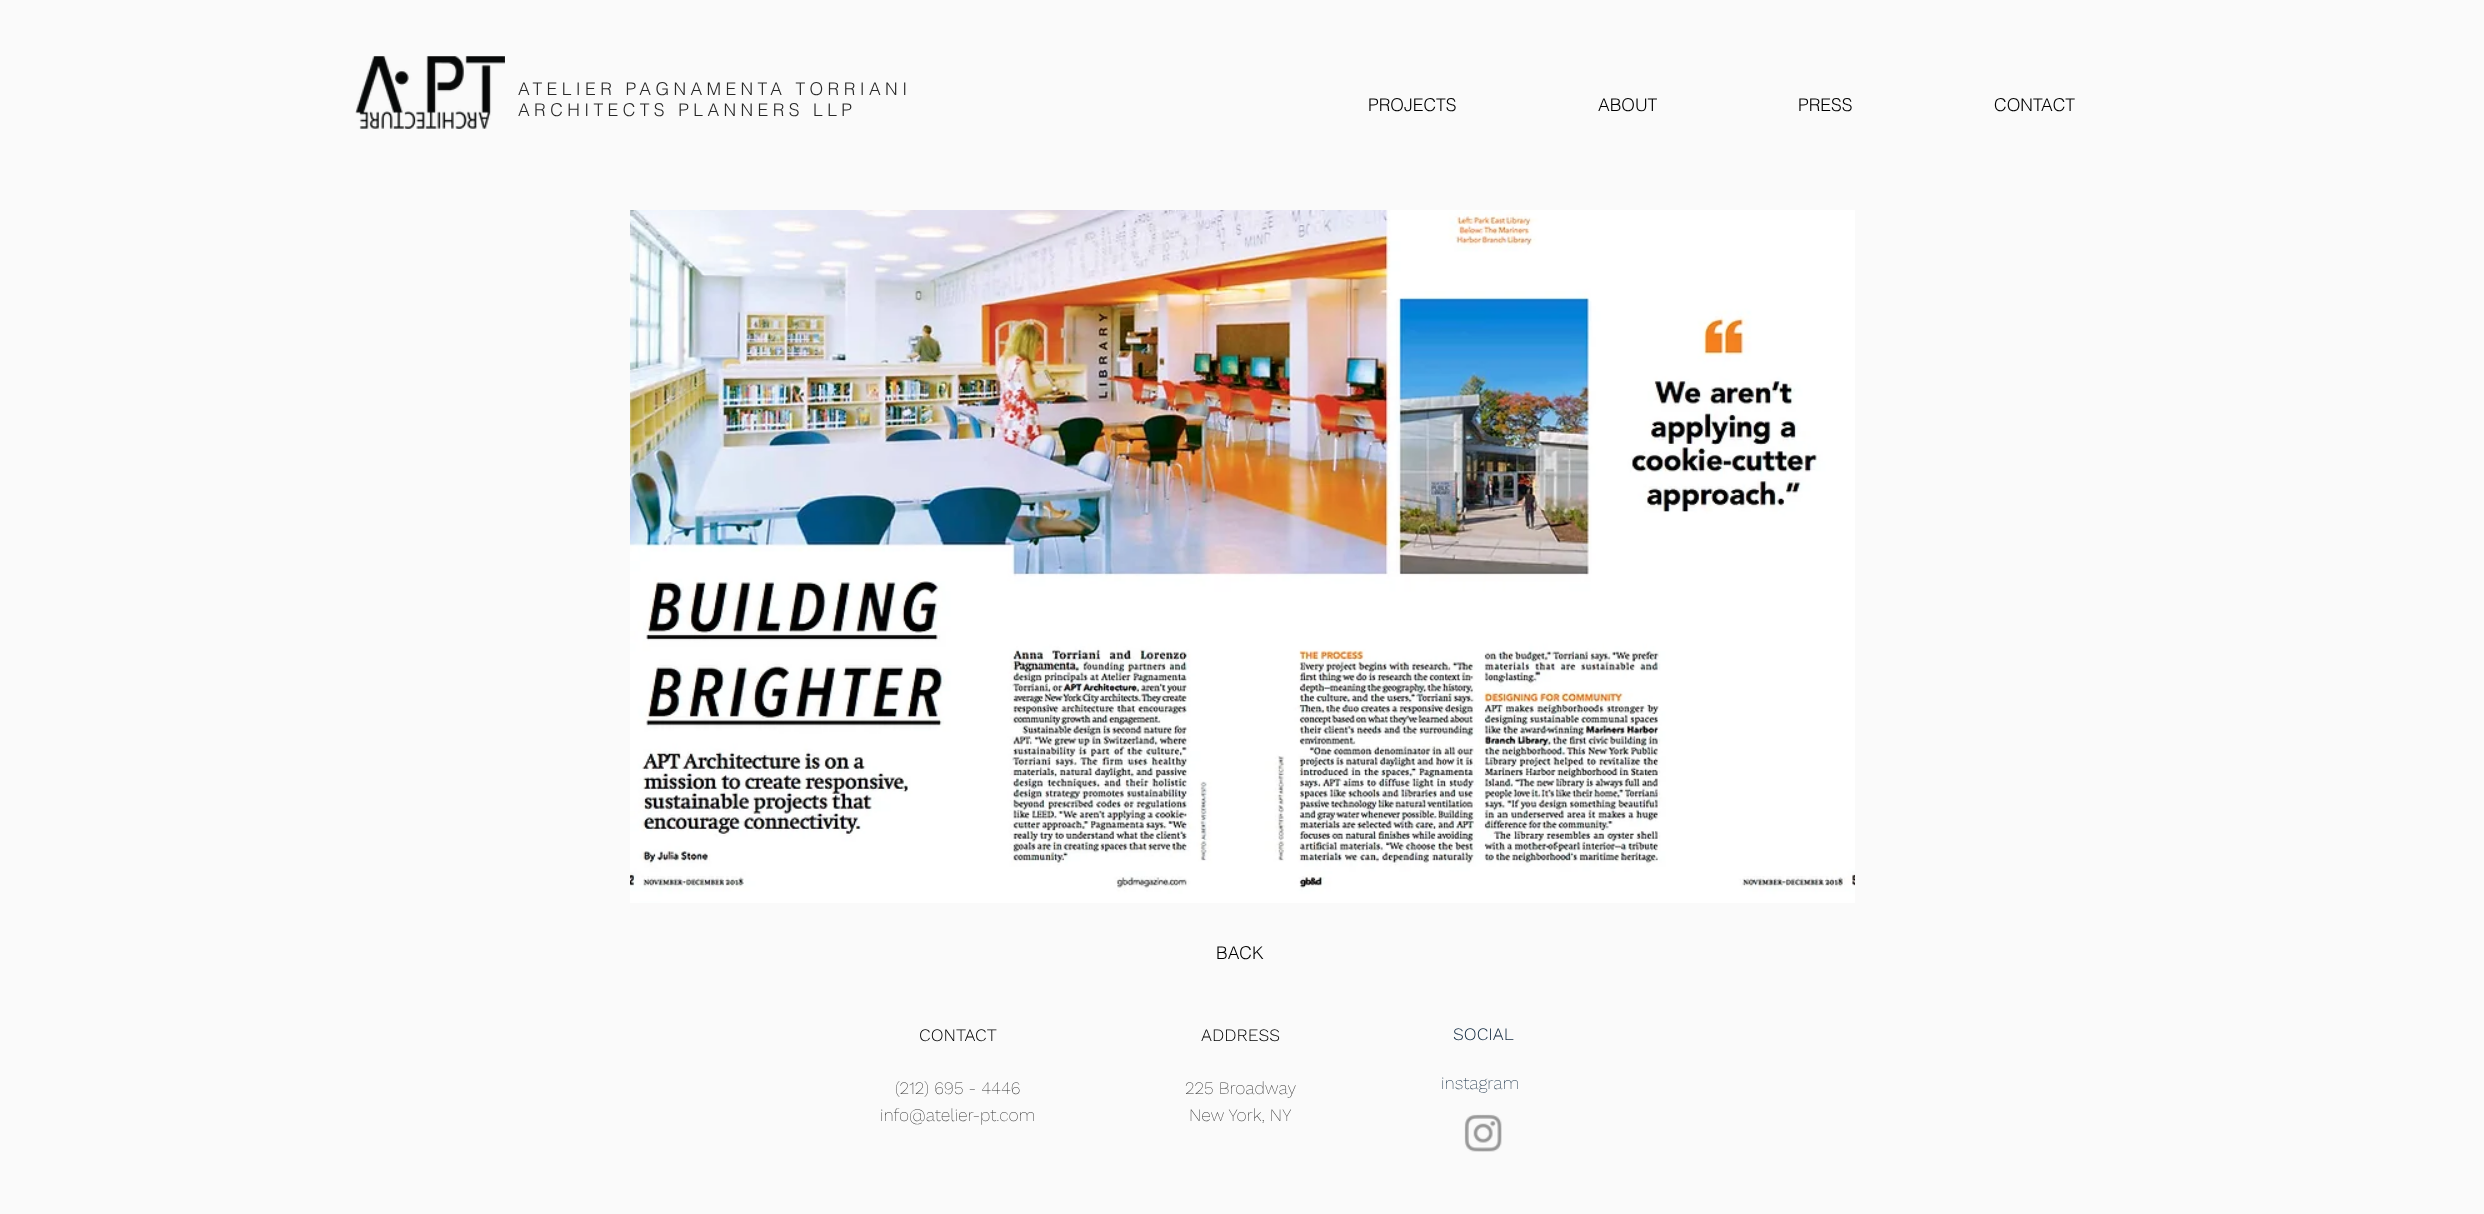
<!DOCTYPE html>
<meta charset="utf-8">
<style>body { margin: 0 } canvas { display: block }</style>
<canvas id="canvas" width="2484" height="1214"></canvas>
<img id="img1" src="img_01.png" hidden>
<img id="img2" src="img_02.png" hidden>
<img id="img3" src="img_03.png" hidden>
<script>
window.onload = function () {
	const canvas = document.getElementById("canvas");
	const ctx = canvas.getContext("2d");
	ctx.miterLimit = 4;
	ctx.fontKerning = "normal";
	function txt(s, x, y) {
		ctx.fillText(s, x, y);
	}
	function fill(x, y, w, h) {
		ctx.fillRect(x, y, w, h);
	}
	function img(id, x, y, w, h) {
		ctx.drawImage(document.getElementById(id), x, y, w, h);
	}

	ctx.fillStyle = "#FAFAFA";
	fill(0, 0, 2484, 1214);
	img("img1", 355, 56, 150, 73);
	img("img2", 630, 210, 1225, 693);
	img("img3", 1464, 1114, 38, 38);
	ctx.letterSpacing = "4.4px";
	ctx.font = "300 17.5px helvetica";
	ctx.fillStyle = "#292929";
	txt("ATELIER PAGNAMENTA TORRIANI", 518, 95);
	txt("ARCHITECTS PLANNERS LLP", 518, 116);
	ctx.letterSpacing = "0px";
	ctx.fillStyle = "#000000";
	txt("PROJECTS", 1368, 111);
	txt("ABOUT", 1598, 111);
	txt("PRESS", 1798, 111);
	txt("CONTACT", 1994, 111);
	txt("BACK", 1216, 959);
	ctx.font = "300 17.5px Work Sans";
	txt("CONTACT", 919, 1041);
	ctx.font = "200 17.5px Work Sans";
	ctx.fillStyle = "#333333";
	txt("(212) 695 - 4446", 895, 1094);
	txt("info@atelier-pt.com", 880, 1121);
	ctx.font = "300 17.5px Work Sans";
	ctx.fillStyle = "#000000";
	txt("ADDRESS", 1201, 1041);
	ctx.font = "200 17.5px Work Sans";
	ctx.fillStyle = "#333333";
	txt("225 Broadway", 1185, 1094);
	txt("New York, NY", 1189, 1121);
	ctx.font = "300 17.5px Work Sans";
	ctx.fillStyle = "#10283F";
	txt("SOCIAL", 1453, 1040);
	ctx.font = "200 17.5px Work Sans";
	txt("instagram", 1441, 1089);
};
</script>
